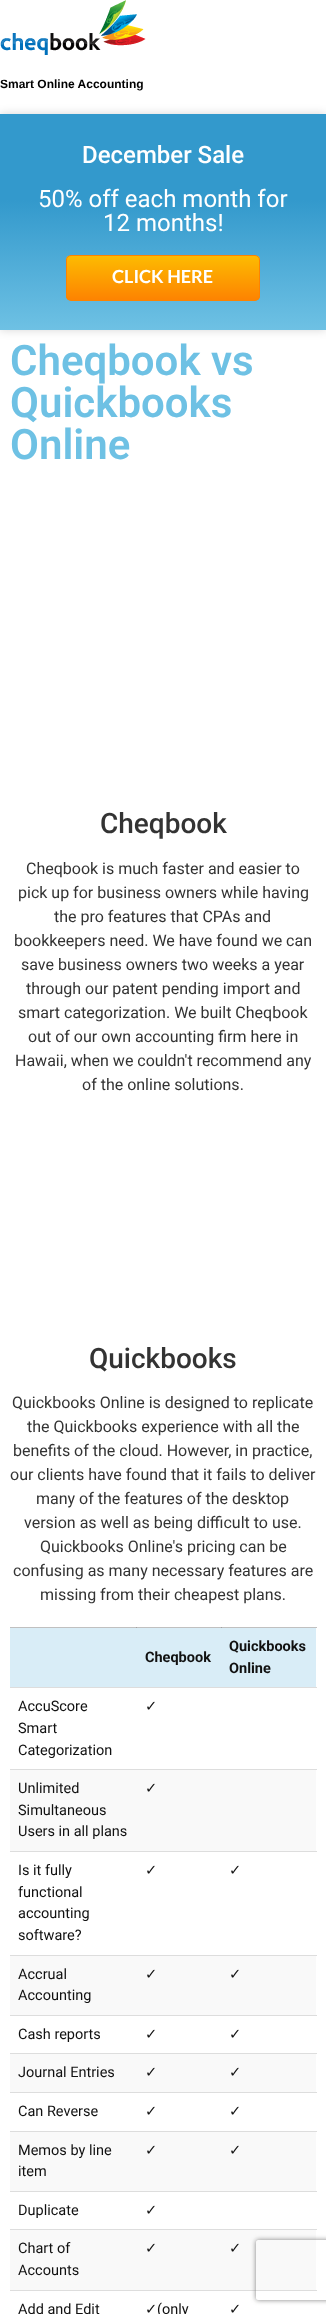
<!DOCTYPE html>
<meta charset="utf-8">
<style>body { margin: 0 } canvas { display: block }</style>
<canvas id="canvas" width="326" height="2314"></canvas>
<img id="img1" src="img_01.png" hidden>
<script>
window.onload = function () {
	const canvas = document.getElementById("canvas");
	const ctx = canvas.getContext("2d");
	ctx.miterLimit = 4;
	ctx.fontKerning = "normal";
	function txt(s, x, y) {
		ctx.fillText(s, x, y);
	}
	function fill(x, y, w, h) {
		ctx.fillRect(x, y, w, h);
	}
	function img(id, x, y, w, h) {
		ctx.drawImage(document.getElementById(id), x, y, w, h);
	}
	let gradient;

	ctx.fillStyle = "#FFFFFF";
	fill(0, 0, 326, 2314);
	ctx.fillStyle = "#C0C0C0";
	fill(10, 1627, 307, 1);
	ctx.fillStyle = "#A0A0A0";
	fill(136, 1627, 1, 1);
	img("img1", 0, 0, 146, 55);
	ctx.fillStyle = "rgba(0, 0, 0, 0.16)";
	ctx.filter = "blur(5px)";
	ctx.beginPath();
	ctx.rect(0, 114, 326, 216);
	ctx.fill();
	ctx.filter = "none";
	gradient = ctx.createLinearGradient(163, 114, 163, 330);
	gradient.addColorStop(0.4, "#3399CC");
	gradient.addColorStop(1, "#6EC1E4");
	ctx.fillStyle = gradient;
	fill(0, 114, 326, 216);
	ctx.save();
	ctx.beginPath();
	ctx.roundRect(66, 255, 194, 46, 5);
	ctx.clip();
	gradient = ctx.createLinearGradient(163, 256, 163, 300);
	gradient.addColorStop(0, "#FDBB01");
	gradient.addColorStop(1, "#FD8301");
	ctx.fillStyle = gradient;
	fill(66, 256, 194, 44);
	ctx.restore();
	ctx.beginPath();
	ctx.roundRect(66.5, 255.5, 193, 45, 4.5);
	ctx.strokeStyle = "#FD8301";
	ctx.stroke();
	ctx.fillStyle = "#D9EDF7";
	fill(10, 1628, 306, 59);
	ctx.fillStyle = "#A0A0A0";
	fill(221, 1627, 1, 1);
	ctx.fillStyle = "#DDDDDD";
	fill(10, 1687, 307, 1);
	fill(10, 1769, 307, 1);
	ctx.fillStyle = "#F9F9F9";
	fill(10, 1770, 306, 81);
	ctx.fillStyle = "#DDDDDD";
	fill(10, 1851, 307, 1);
	ctx.fillStyle = "#F9F9F9";
	fill(10, 1956, 306, 59);
	ctx.fillStyle = "#DDDDDD";
	fill(10, 1955, 307, 1);
	fill(10, 2015, 307, 1);
	ctx.fillStyle = "#F9F9F9";
	fill(10, 2054, 306, 38);
	ctx.fillStyle = "#DDDDDD";
	fill(10, 2053, 307, 1);
	fill(10, 2092, 307, 1);
	ctx.fillStyle = "#F9F9F9";
	fill(10, 2132, 306, 59);
	ctx.fillStyle = "#DDDDDD";
	fill(10, 2131, 307, 1);
	fill(10, 2191, 307, 1);
	ctx.fillStyle = "#F9F9F9";
	fill(10, 2230, 306, 60);
	ctx.fillStyle = "#DDDDDD";
	fill(10, 2229, 307, 1);
	fill(10, 2290, 307, 1);
	ctx.save();
	ctx.beginPath();
	ctx.moveTo(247, 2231);
	ctx.lineTo(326, 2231);
	ctx.lineTo(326, 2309);
	ctx.lineTo(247, 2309);
	ctx.closePath();
	ctx.moveTo(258, 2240);
	ctx.lineTo(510, 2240);
	ctx.bezierCurveTo(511, 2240, 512, 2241, 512, 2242);
	ctx.lineTo(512, 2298);
	ctx.bezierCurveTo(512, 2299, 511, 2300, 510, 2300);
	ctx.lineTo(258, 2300);
	ctx.bezierCurveTo(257, 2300, 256, 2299, 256, 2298);
	ctx.lineTo(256, 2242);
	ctx.bezierCurveTo(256, 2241, 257, 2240, 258, 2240);
	ctx.closePath();
	ctx.clip("evenodd");
	ctx.fillStyle = "#808080";
	ctx.filter = "blur(2.5px)";
	ctx.beginPath();
	ctx.roundRect(256, 2240, 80, 60, 2);
	ctx.fill();
	ctx.filter = "none";
	ctx.restore();
	ctx.font = "bold 12px Liberation Sans";
	ctx.fillStyle = "#000000";
	txt("Smart Online Accounting", 0, 88);
	ctx.font = "500 24px Roboto";
	ctx.fillStyle = "#FFFFFF";
	txt("December Sale", 82, 163);
	ctx.font = "24px Roboto";
	txt("50% off each month for", 38, 207);
	txt("12 months!", 103, 231);
	ctx.font = "bold 18px Lato";
	txt("CLICK HERE", 112, 283);
	ctx.font = "600 42px Roboto";
	ctx.fillStyle = "#6EC1E4";
	txt("Cheqbook vs", 10, 375);
	txt("Quickbooks", 10, 417);
	txt("Online", 10, 459);
	ctx.font = "500 28px Roboto";
	ctx.fillStyle = "#333333";
	txt("Cheqbook", 100, 833);
	ctx.font = "16px Roboto";
	txt("Cheqbook is much faster and easier to", 26, 874);
	txt("pick up for business owners while having", 18, 898);
	txt("the pro features that CPAs and", 54, 922);
	txt("bookkeepers need. We have found we can", 14, 946);
	txt("save business owners two weeks a year", 21, 970);
	txt("through our patent pending import and", 26, 994);
	txt("smart categorization. We built Cheqbook", 18, 1018);
	txt("out of our own accounting firm here in", 28, 1042);
	txt("Hawaii, when we couldn't recommend any", 15, 1066);
	txt("of the online solutions.", 82, 1090);
	ctx.font = "500 28px Roboto";
	txt("Quickbooks", 89, 1368);
	ctx.font = "16px Roboto";
	txt("Quickbooks Online is designed to replicate", 12, 1408);
	txt("the Quickbooks experience with all the", 27, 1432);
	txt("benefits of the cloud. However, in practice,", 13, 1456);
	txt("our clients have found that it fails to deliver", 10, 1480);
	txt("many of the features of the desktop", 36, 1504);
	txt("version as well as being difficult to use.", 24, 1528);
	txt("Quickbooks Online's pricing can be", 40, 1552);
	txt("confusing as many necessary features are", 13, 1576);
	txt("missing from their cheapest plans.", 40, 1600);
	ctx.font = "bold 14.5px Roboto";
	ctx.fillStyle = "#111111";
	txt("Cheqbook", 145, 1662);
	txt("Quickbooks", 229, 1651);
	txt("Online", 229, 1673);
	ctx.font = "14.5px Roboto";
	txt("AccuScore", 18, 1711);
	txt("Smart", 18, 1733);
	txt("Categorization", 18, 1755);
	ctx.font = "14.5px DejaVu Sans";
	txt("✓", 145, 1711);
	ctx.font = "14.5px Roboto";
	txt("Unlimited", 18, 1793);
	txt("Simultaneous", 18, 1815);
	txt("Users in all plans", 18, 1836);
	ctx.font = "14.5px DejaVu Sans";
	txt("✓", 145, 1793);
	ctx.font = "14.5px Roboto";
	txt("Is it fully", 18, 1875);
	txt("functional", 18, 1897);
	txt("accounting", 18, 1918);
	txt("software?", 18, 1940);
	ctx.font = "14.5px DejaVu Sans";
	txt("✓", 145, 1875);
	txt("✓", 229, 1875);
	ctx.font = "14.5px Roboto";
	txt("Accrual", 18, 1979);
	txt("Accounting", 18, 2000);
	ctx.font = "14.5px DejaVu Sans";
	txt("✓", 145, 1979);
	txt("✓", 229, 1979);
	ctx.font = "14.5px Roboto";
	txt("Cash reports", 18, 2039);
	ctx.font = "14.5px DejaVu Sans";
	txt("✓", 145, 2039);
	txt("✓", 229, 2039);
	ctx.font = "14.5px Roboto";
	txt("Journal Entries", 18, 2077);
	ctx.font = "14.5px DejaVu Sans";
	txt("✓", 145, 2077);
	txt("✓", 229, 2077);
	ctx.font = "14.5px Roboto";
	txt("Can Reverse", 18, 2116);
	ctx.font = "14.5px DejaVu Sans";
	txt("✓", 145, 2116);
	txt("✓", 229, 2116);
	ctx.font = "14.5px Roboto";
	txt("Memos by line", 18, 2155);
	txt("item", 18, 2176);
	ctx.font = "14.5px DejaVu Sans";
	txt("✓", 145, 2155);
	txt("✓", 229, 2155);
	ctx.font = "14.5px Roboto";
	txt("Duplicate", 18, 2215);
	ctx.font = "14.5px DejaVu Sans";
	txt("✓", 145, 2215);
	ctx.font = "14.5px Roboto";
	txt("Chart of", 18, 2253);
	txt("Accounts", 18, 2275);
	ctx.font = "14.5px DejaVu Sans";
	txt("✓", 145, 2253);
	txt("✓", 229, 2253);
	ctx.font = "14.5px Roboto";
	txt("Add and Edit", 18, 2314);
	ctx.font = "14.5px DejaVu Sans";
	txt("✓", 145, 2314);
	ctx.font = "14.5px Roboto";
	txt("(only", 157, 2314);
	ctx.font = "14.5px DejaVu Sans";
	txt("✓", 229, 2314);
};
</script>
